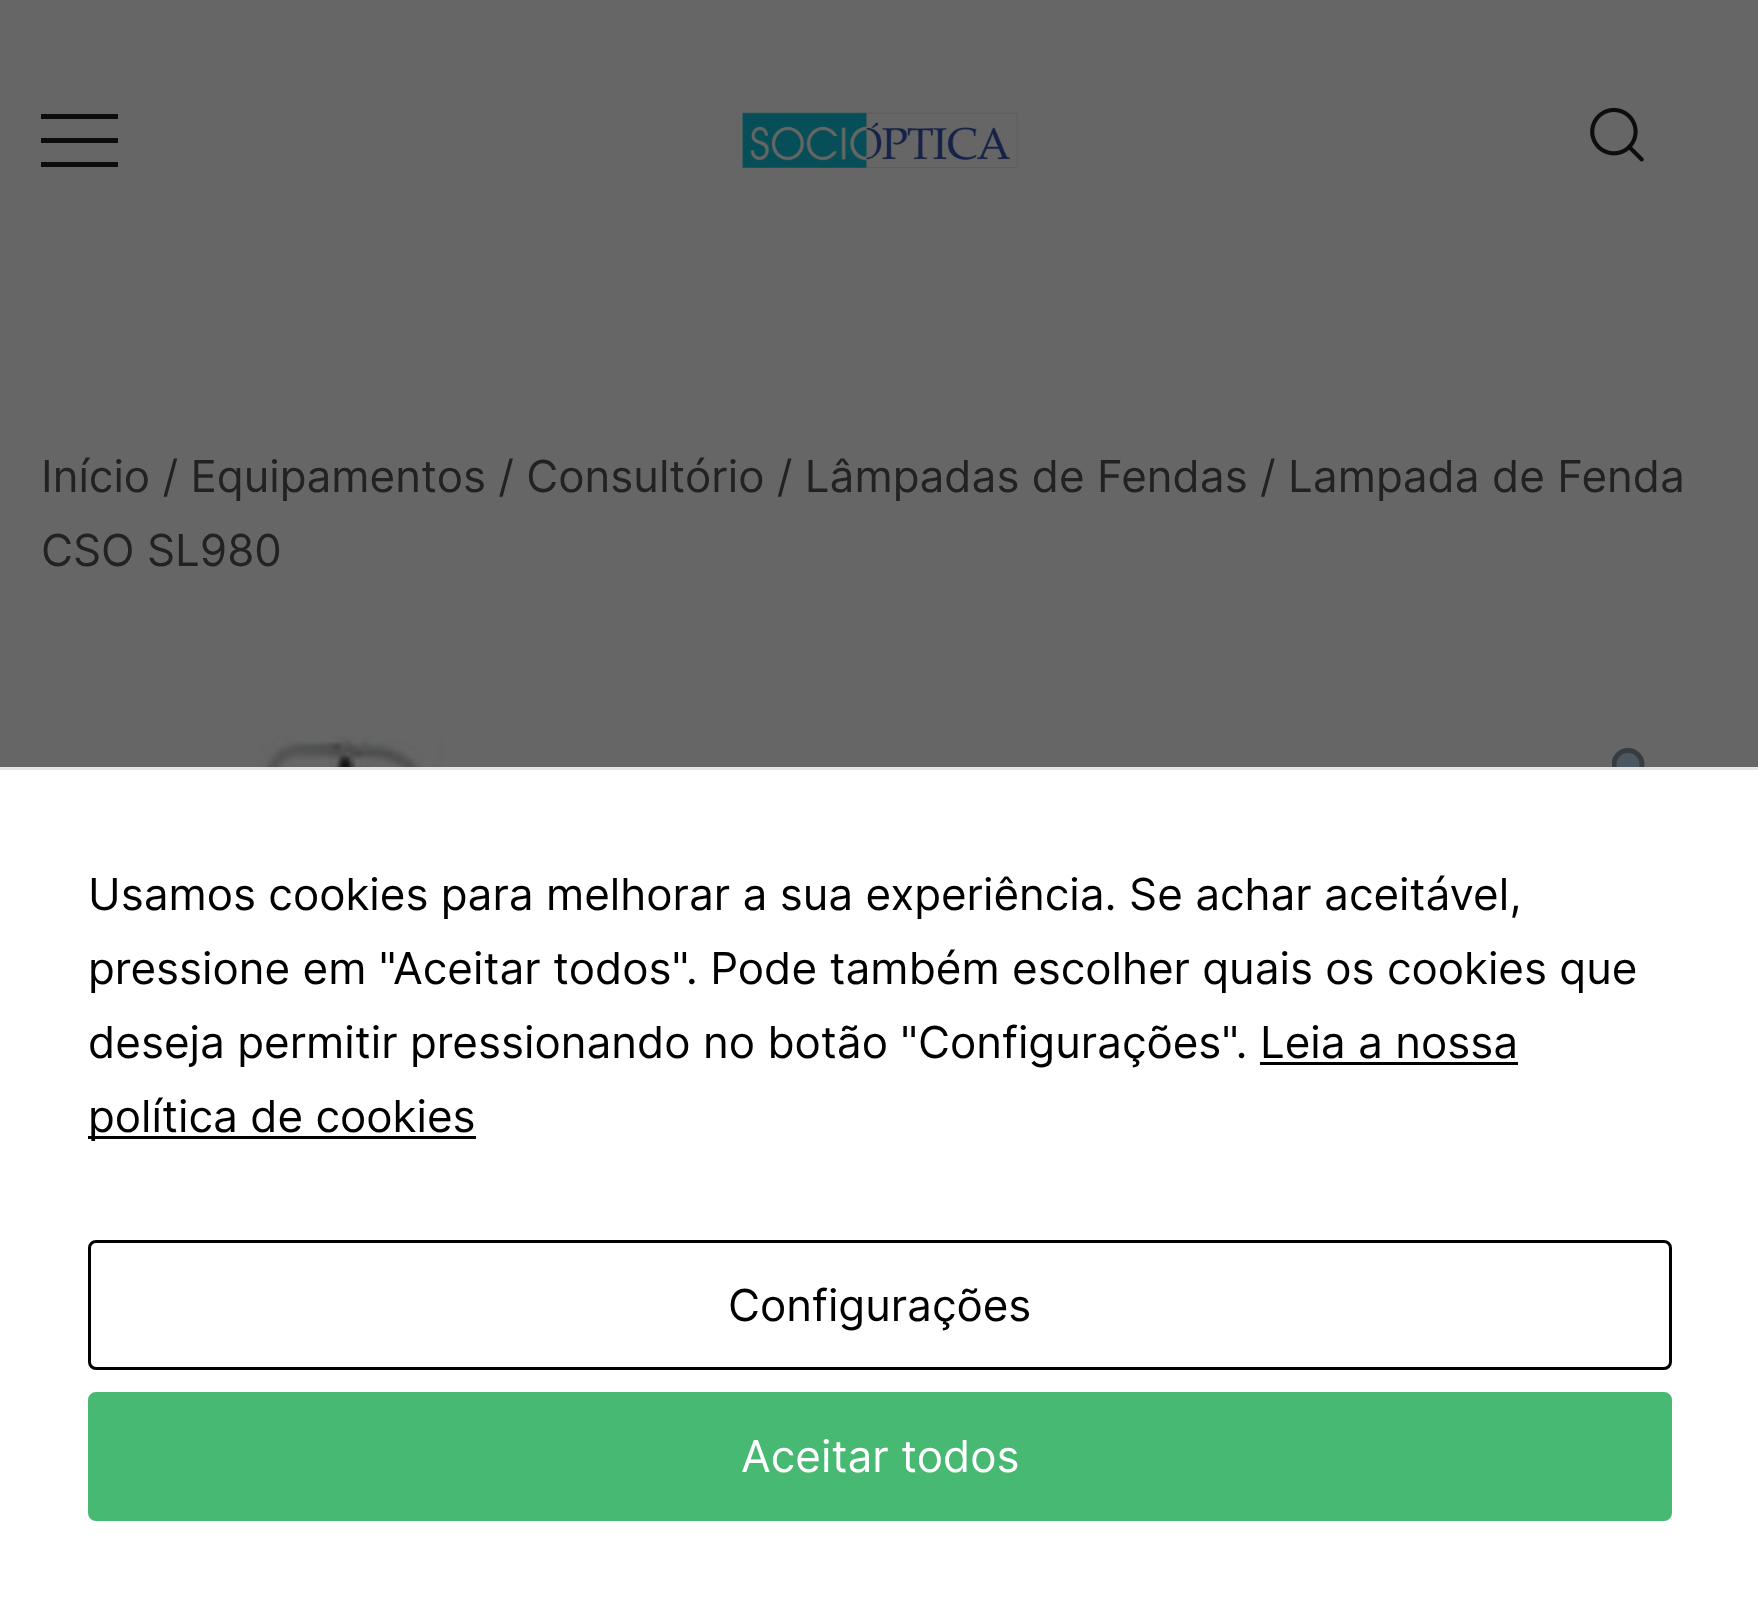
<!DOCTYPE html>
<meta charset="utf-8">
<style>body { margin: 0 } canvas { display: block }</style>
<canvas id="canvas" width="1758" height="1608"></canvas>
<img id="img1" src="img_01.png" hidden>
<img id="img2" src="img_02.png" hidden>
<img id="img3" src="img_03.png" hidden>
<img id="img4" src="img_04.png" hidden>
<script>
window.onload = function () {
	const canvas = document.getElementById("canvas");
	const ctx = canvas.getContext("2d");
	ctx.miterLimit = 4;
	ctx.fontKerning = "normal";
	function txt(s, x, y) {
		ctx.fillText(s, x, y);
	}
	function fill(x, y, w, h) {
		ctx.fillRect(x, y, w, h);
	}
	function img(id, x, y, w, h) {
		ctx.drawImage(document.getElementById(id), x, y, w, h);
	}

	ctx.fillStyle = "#666666";
	fill(0, 0, 1758, 1608);
	ctx.fillStyle = "#0D0D0D";
	fill(41, 114, 77, 5);
	fill(41, 138, 77, 5);
	fill(41, 162, 77, 5);
	img("img1", 742, 112, 276, 56);
	img("img2", 1590, 107, 54, 55);
	img("img3", 174, 736, 593, 31);
	img("img4", 1612, 748, 33, 19);
	ctx.fillStyle = "#FFFFFF";
	fill(0, 770, 1758, 838);
	ctx.fillStyle = "#E6E6E6";
	fill(0, 767, 1758, 3);
	ctx.fillStyle = "#000000";
	fill(1260, 1062, 258, 3);
	fill(88, 1136, 388, 3);
	ctx.beginPath();
	ctx.roundRect(89.5, 1241.5, 1581, 127, 6.5);
	ctx.strokeStyle = "#000000";
	ctx.lineWidth = 3;
	ctx.stroke();
	ctx.fillStyle = "#47B973";
	ctx.beginPath();
	ctx.roundRect(89.5, 1393.5, 1581, 126, 6.5);
	ctx.fill();
	ctx.strokeStyle = "#47B973";
	ctx.stroke();
	ctx.font = "44px Inter";
	ctx.fillStyle = "#222223";
	txt("Início / Equipamentos / Consultório / Lâmpadas de Fendas / Lampada de Fenda", 41, 492);
	txt("CSO SL980", 41, 566);
	ctx.fillStyle = "#000000";
	txt("Usamos cookies para melhorar a sua experiência. Se achar aceitável,", 88, 910);
	txt("pressione em \"Aceitar todos\". Pode também escolher quais os cookies que", 88, 984);
	txt("deseja permitir pressionando no botão \"Configurações\". Leia a nossa", 88, 1058);
	txt("política de cookies", 88, 1132);
	txt("Configurações", 728, 1321);
	ctx.fillStyle = "#FFFFFF";
	txt("Aceitar todos", 741, 1472);
};
</script>
